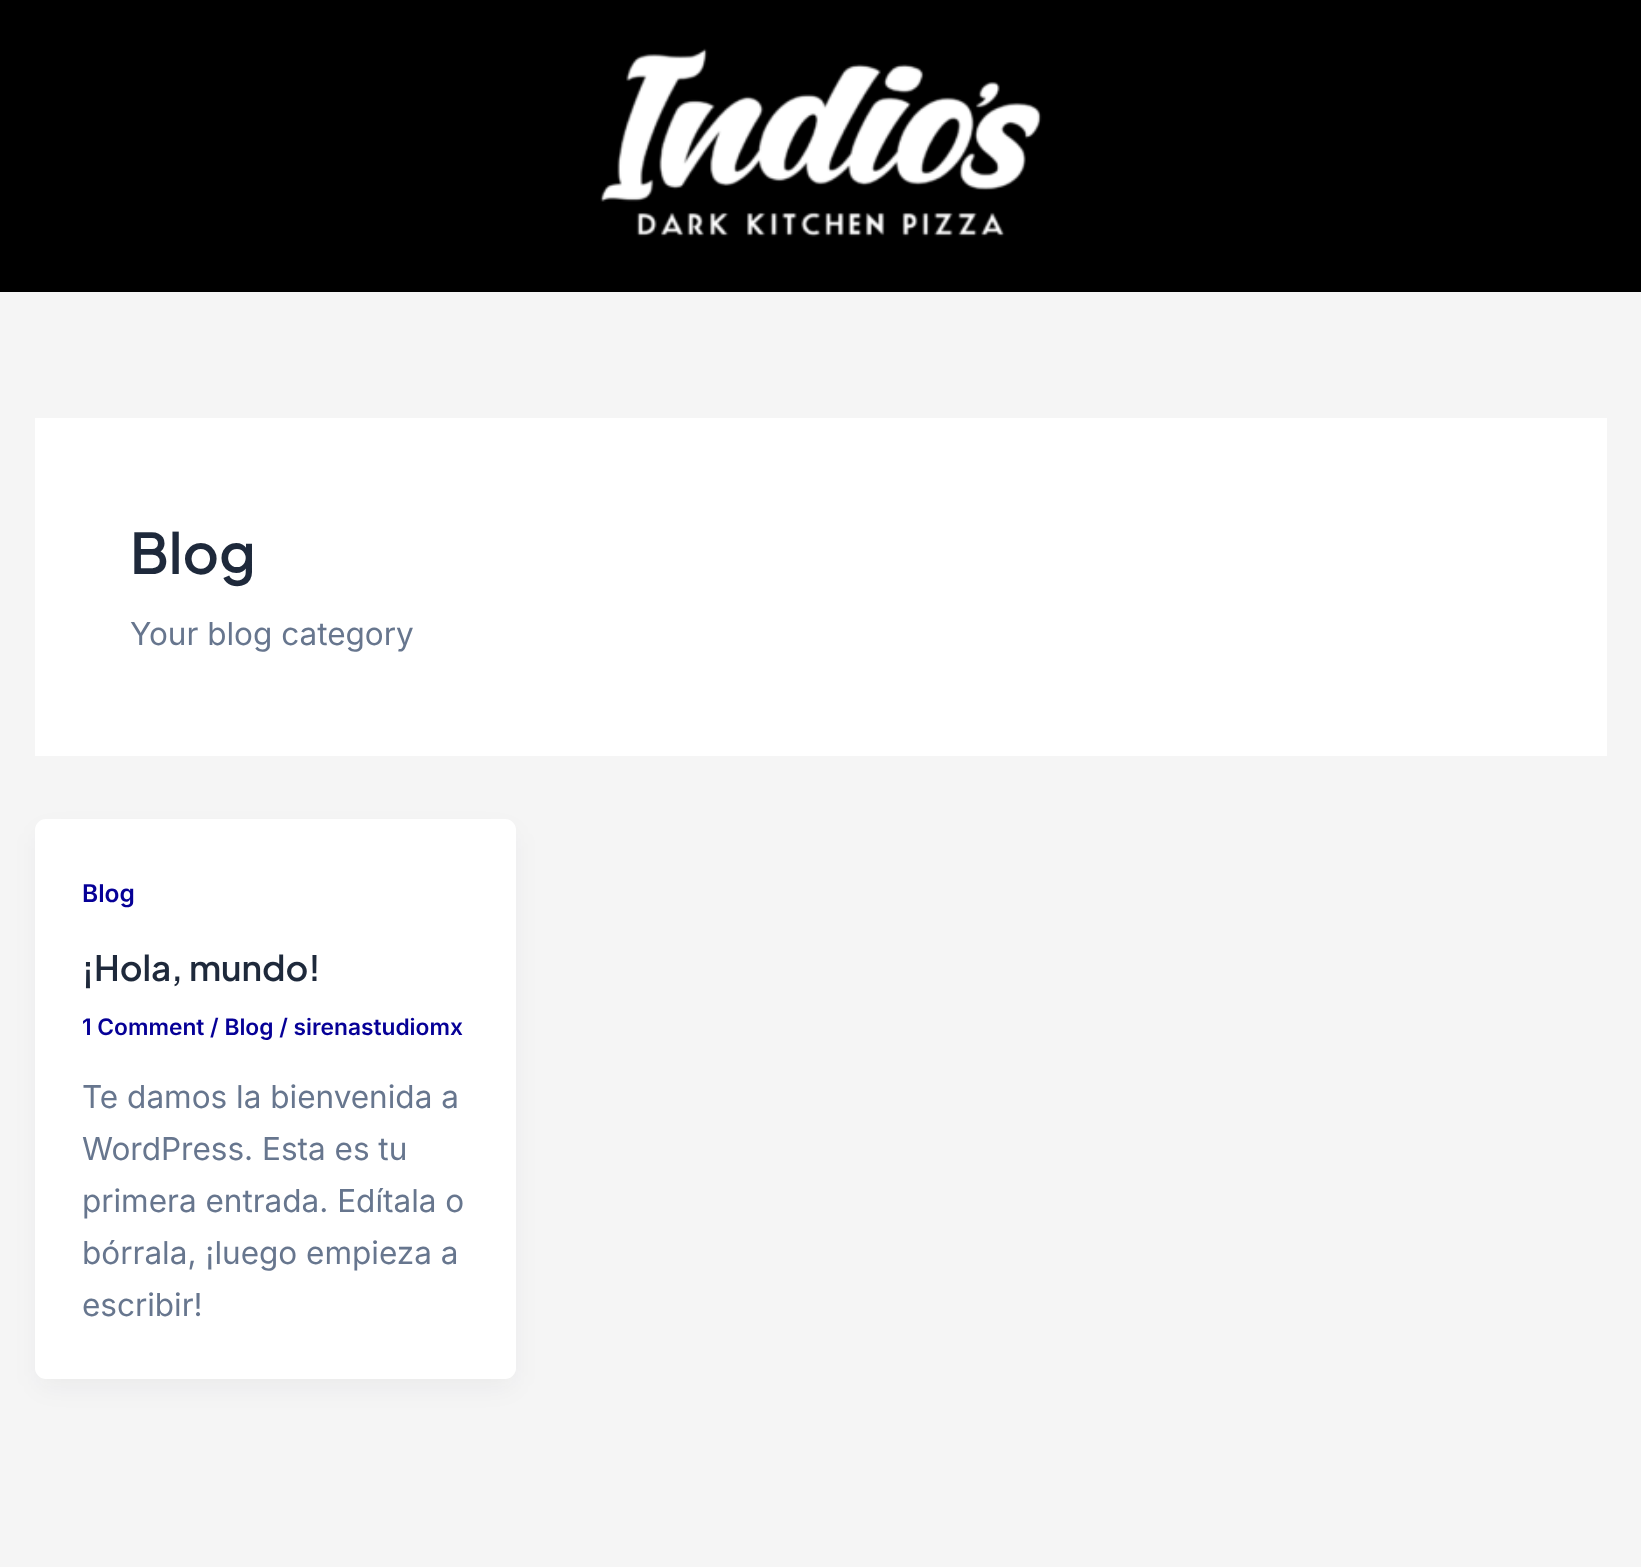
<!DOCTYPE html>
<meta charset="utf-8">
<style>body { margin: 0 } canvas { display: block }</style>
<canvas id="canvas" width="1641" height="1567"></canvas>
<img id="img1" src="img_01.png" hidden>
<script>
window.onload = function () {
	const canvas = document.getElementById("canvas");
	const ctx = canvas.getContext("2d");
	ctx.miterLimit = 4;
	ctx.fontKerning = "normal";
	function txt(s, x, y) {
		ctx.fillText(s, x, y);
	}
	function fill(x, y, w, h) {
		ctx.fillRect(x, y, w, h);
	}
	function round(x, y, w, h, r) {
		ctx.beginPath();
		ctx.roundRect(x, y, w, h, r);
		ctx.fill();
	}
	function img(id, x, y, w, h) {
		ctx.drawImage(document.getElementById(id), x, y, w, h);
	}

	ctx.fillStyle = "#F5F5F5";
	fill(0, 0, 1641, 1567);
	ctx.fillStyle = "#000000";
	fill(0, 0, 1641, 292);
	img("img1", 600, 48, 442, 189);
	ctx.fillStyle = "#FFFFFF";
	fill(35, 418, 1572, 338);
	ctx.fillStyle = "rgba(16, 24, 40, 0.05)";
	ctx.filter = "blur(13px)";
	ctx.beginPath();
	ctx.roundRect(39, 833, 474, 553, 7);
	ctx.fill();
	ctx.filter = "none";
	ctx.fillStyle = "#FFFFFF";
	round(35, 819, 481, 560, 11);
	ctx.font = "600 56px Plus Jakarta Sans";
	ctx.fillStyle = "#1E293B";
	txt("Blog", 130, 574);
	ctx.font = "31.5px Inter";
	ctx.fillStyle = "#67768E";
	txt("Your blog category", 130, 645);
	ctx.font = "600 24.5px Inter";
	ctx.fillStyle = "#060097";
	txt("Blog", 82, 902);
	ctx.font = "600 35px Plus Jakarta Sans";
	ctx.fillStyle = "#1E293B";
	txt("¡Hola, mundo!", 82, 981);
	ctx.font = "600 22.75px Inter";
	ctx.fillStyle = "#060097";
	txt("1 Comment / Blog / sirenastudiomx", 82, 1035);
	ctx.font = "31.5px Inter";
	ctx.fillStyle = "#67768E";
	txt("Te damos la bienvenida a", 82, 1108);
	txt("WordPress. Esta es tu", 82, 1160);
	txt("primera entrada. Edítala o", 82, 1212);
	txt("bórrala, ¡luego empieza a", 82, 1264);
	txt("escribir!", 82, 1316);
};
</script>
